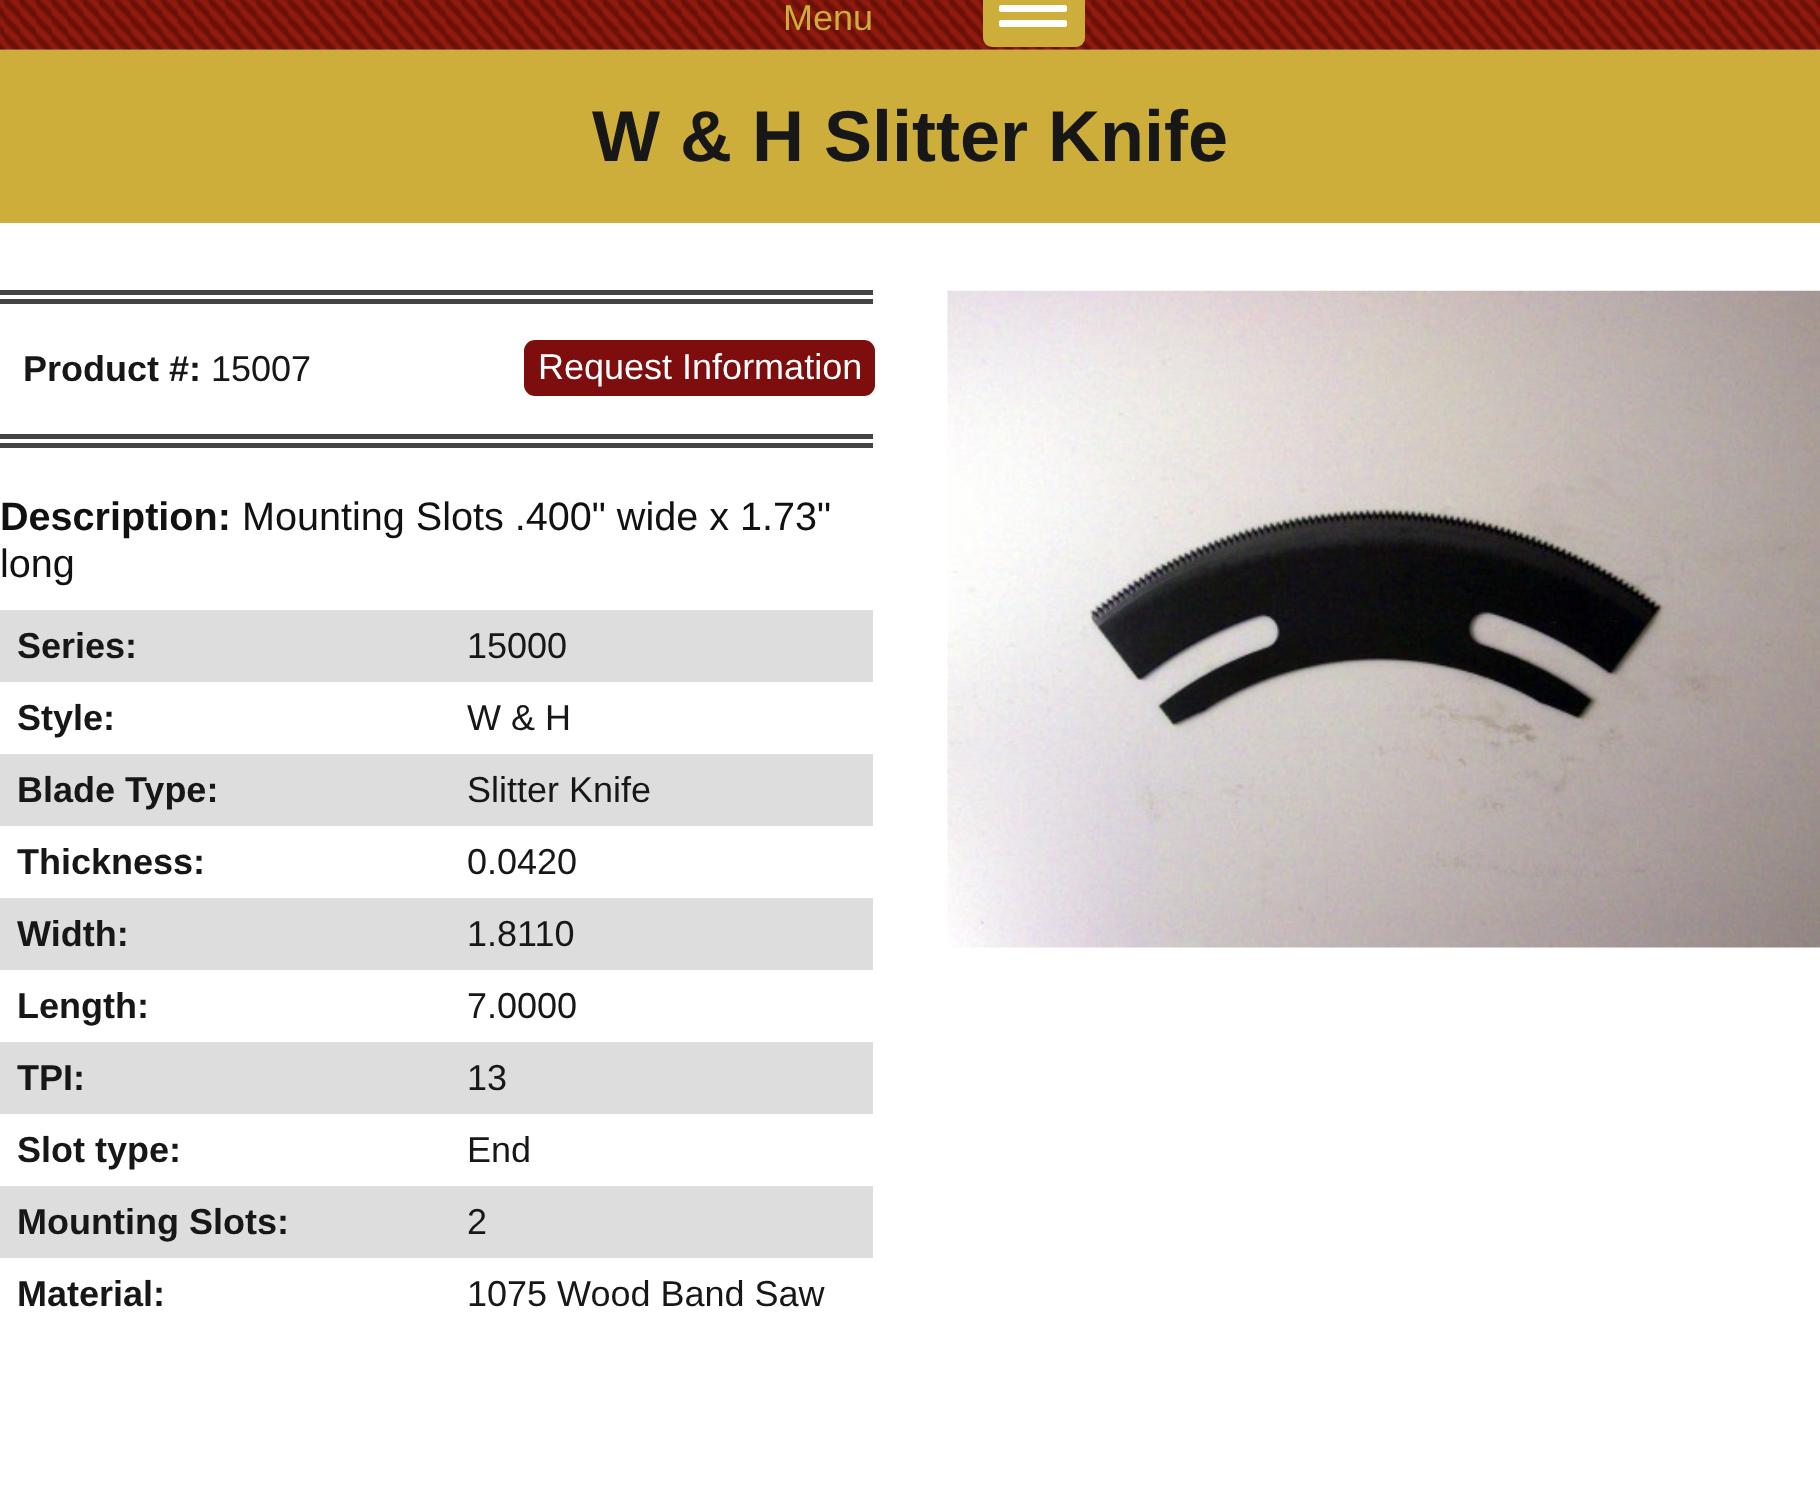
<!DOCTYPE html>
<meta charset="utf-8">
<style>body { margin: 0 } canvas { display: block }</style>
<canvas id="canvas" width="1820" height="1499"></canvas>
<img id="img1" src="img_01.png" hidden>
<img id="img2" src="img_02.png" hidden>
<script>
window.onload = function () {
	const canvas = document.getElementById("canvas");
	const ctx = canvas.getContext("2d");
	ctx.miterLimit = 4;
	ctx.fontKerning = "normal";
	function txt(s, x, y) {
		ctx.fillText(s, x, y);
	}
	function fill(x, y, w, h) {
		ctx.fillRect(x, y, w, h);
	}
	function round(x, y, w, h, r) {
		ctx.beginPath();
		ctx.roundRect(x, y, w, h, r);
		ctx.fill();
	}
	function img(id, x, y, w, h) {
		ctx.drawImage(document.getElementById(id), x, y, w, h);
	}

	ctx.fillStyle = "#FFFFFF";
	fill(0, 0, 1820, 1499);
	img("img1", 0, 0, 1820, 50);
	ctx.fillStyle = "#CEAE3A";
	round(983, -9, 102, 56, 9);
	ctx.fillStyle = "#FFFFFF";
	round(999, 5, 68, 7, 2);
	round(999, 20, 68, 7, 2);
	ctx.fillStyle = "#CEAE3A";
	fill(0, 50, 1820, 173);
	ctx.fillStyle = "#444444";
	fill(0, 290, 873, 5);
	fill(0, 299, 873, 5);
	fill(0, 434, 873, 5);
	fill(0, 443, 873, 5);
	ctx.fillStyle = "#7E0E0E";
	round(524, 340, 351, 56, 11);
	ctx.fillStyle = "#DDDDDD";
	fill(0, 610, 873, 72);
	fill(0, 754, 873, 72);
	fill(0, 898, 873, 72);
	fill(0, 1042, 873, 72);
	fill(0, 1186, 873, 72);
	img("img2", 947, 290, 873, 658);
	ctx.font = "36px Liberation Sans";
	ctx.fillStyle = "#CEAE3A";
	txt("Menu", 783, 30);
	ctx.font = "bold 72px Liberation Sans";
	ctx.fillStyle = "#171717";
	txt("W & H Slitter Knife", 592, 161);
	ctx.font = "bold 36px Liberation Sans";
	txt("Product #:", 23, 381);
	ctx.font = "36px Liberation Sans";
	txt("15007", 211, 381);
	ctx.fillStyle = "#FFFFFF";
	txt("Request Information", 538, 379);
	ctx.font = "bold 39.6px Liberation Sans";
	ctx.fillStyle = "#111111";
	txt("Description:", 0, 530);
	ctx.font = "39.6px Liberation Sans";
	txt("Mounting Slots .400\" wide x 1.73\"", 242, 530);
	txt("long", 0, 577);
	ctx.font = "bold 36px Liberation Sans";
	ctx.fillStyle = "#171717";
	txt("Series:", 17, 658);
	ctx.font = "36px Liberation Sans";
	txt("15000", 467, 658);
	ctx.font = "bold 36px Liberation Sans";
	txt("Style:", 17, 730);
	ctx.font = "36px Liberation Sans";
	txt("W & H", 467, 730);
	ctx.font = "bold 36px Liberation Sans";
	txt("Blade Type:", 17, 802);
	ctx.font = "36px Liberation Sans";
	txt("Slitter Knife", 467, 802);
	ctx.font = "bold 36px Liberation Sans";
	txt("Thickness:", 17, 874);
	ctx.font = "36px Liberation Sans";
	txt("0.0420", 467, 874);
	ctx.font = "bold 36px Liberation Sans";
	txt("Width:", 17, 946);
	ctx.font = "36px Liberation Sans";
	txt("1.8110", 467, 946);
	ctx.font = "bold 36px Liberation Sans";
	txt("Length:", 17, 1018);
	ctx.font = "36px Liberation Sans";
	txt("7.0000", 467, 1018);
	ctx.font = "bold 36px Liberation Sans";
	txt("TPI:", 17, 1090);
	ctx.font = "36px Liberation Sans";
	txt("13", 467, 1090);
	ctx.font = "bold 36px Liberation Sans";
	txt("Slot type:", 17, 1162);
	ctx.font = "36px Liberation Sans";
	txt("End", 467, 1162);
	ctx.font = "bold 36px Liberation Sans";
	txt("Mounting Slots:", 17, 1234);
	ctx.font = "36px Liberation Sans";
	txt("2", 467, 1234);
	ctx.font = "bold 36px Liberation Sans";
	txt("Material:", 17, 1306);
	ctx.font = "36px Liberation Sans";
	txt("1075 Wood Band Saw", 467, 1306);
};
</script>
